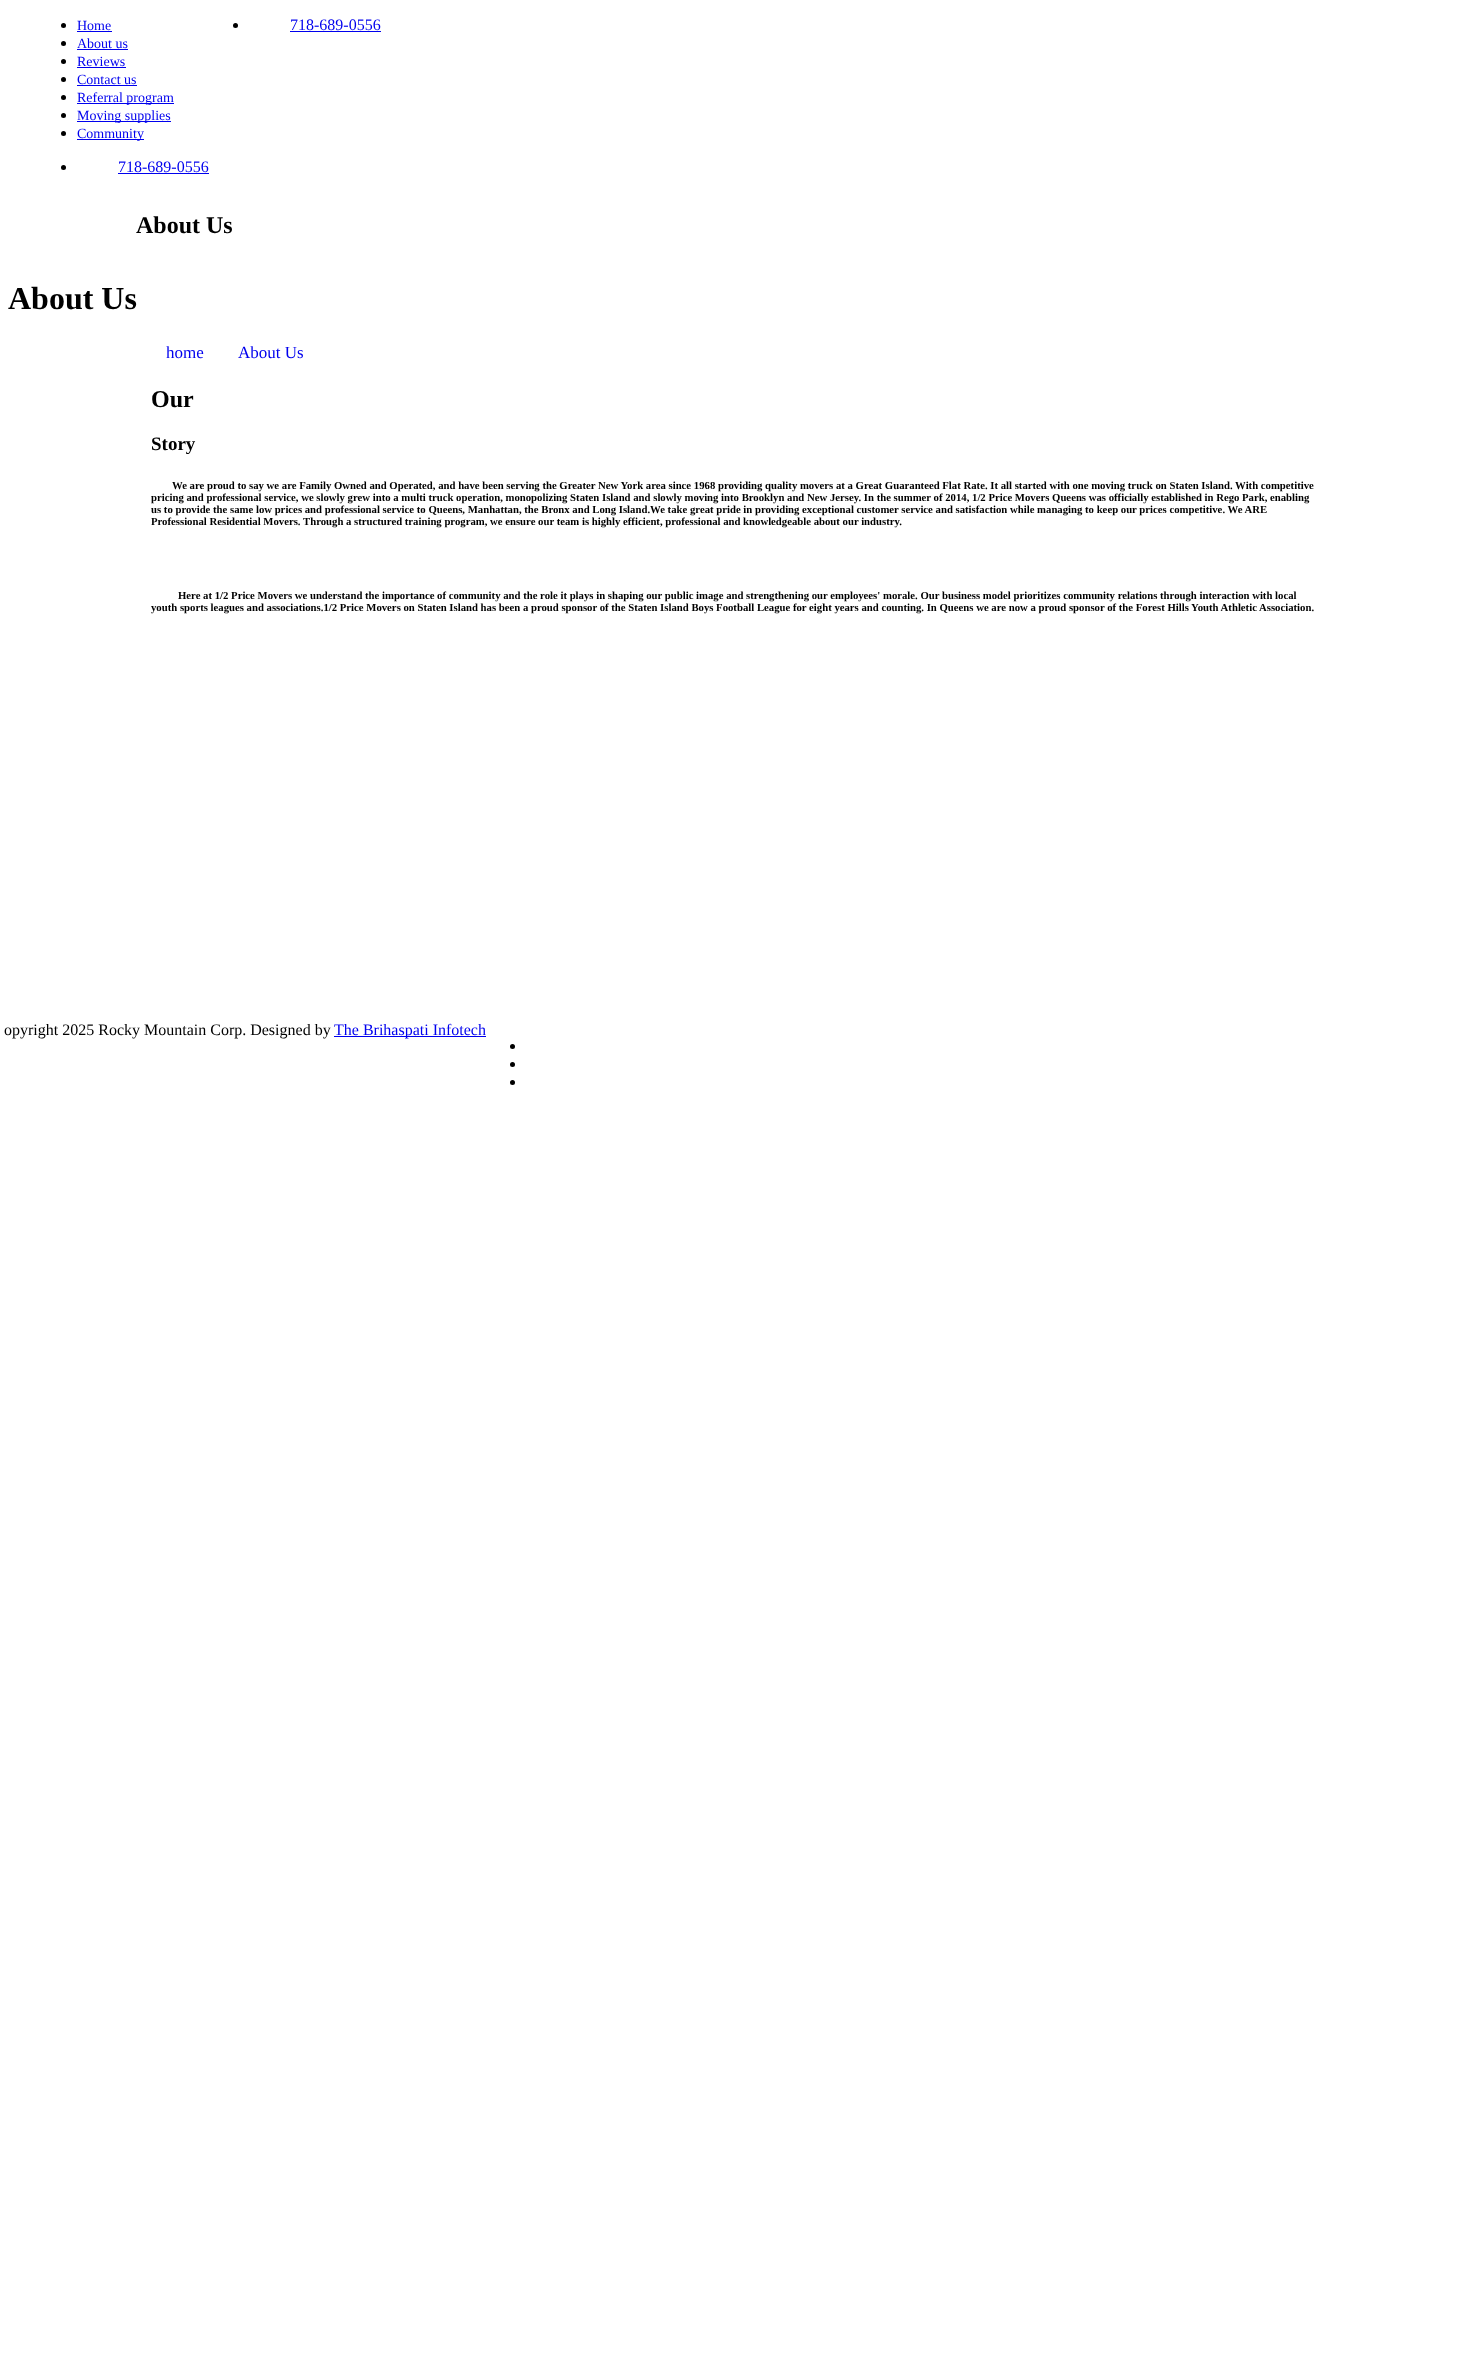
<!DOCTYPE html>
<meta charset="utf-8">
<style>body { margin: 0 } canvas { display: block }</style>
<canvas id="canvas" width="1472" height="2353"></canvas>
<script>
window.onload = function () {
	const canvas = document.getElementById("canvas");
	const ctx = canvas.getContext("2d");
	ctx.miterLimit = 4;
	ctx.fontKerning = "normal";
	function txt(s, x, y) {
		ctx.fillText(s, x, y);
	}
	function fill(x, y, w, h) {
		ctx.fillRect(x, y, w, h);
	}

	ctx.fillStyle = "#FFFFFF";
	fill(0, 0, 1472, 2353);
	ctx.fillStyle = "#000000";
	ctx.beginPath();
	ctx.arc(63.5, 25.5, 2.5, 0, Math.PI * 2);
	ctx.fill();
	ctx.fillStyle = "#0000EE";
	fill(77, 31, 35, 1);
	ctx.fillStyle = "#000000";
	ctx.beginPath();
	ctx.arc(63.5, 43.5, 2.5, 0, Math.PI * 2);
	ctx.fill();
	ctx.fillStyle = "#0000EE";
	fill(77, 49, 51, 1);
	ctx.fillStyle = "#000000";
	ctx.beginPath();
	ctx.arc(63.5, 61.5, 2.5, 0, Math.PI * 2);
	ctx.fill();
	ctx.fillStyle = "#0000EE";
	fill(77, 67, 49, 1);
	ctx.fillStyle = "#000000";
	ctx.beginPath();
	ctx.arc(63.5, 79.5, 2.5, 0, Math.PI * 2);
	ctx.fill();
	ctx.fillStyle = "#0000EE";
	fill(77, 85, 60, 1);
	ctx.fillStyle = "#000000";
	ctx.beginPath();
	ctx.arc(63.5, 97.5, 2.5, 0, Math.PI * 2);
	ctx.fill();
	ctx.fillStyle = "#0000EE";
	fill(77, 103, 97, 1);
	ctx.fillStyle = "#000000";
	ctx.beginPath();
	ctx.arc(63.5, 115.5, 2.5, 0, Math.PI * 2);
	ctx.fill();
	ctx.fillStyle = "#0000EE";
	fill(77, 121, 94, 1);
	ctx.fillStyle = "#000000";
	ctx.beginPath();
	ctx.arc(63.5, 133.5, 2.5, 0, Math.PI * 2);
	ctx.fill();
	ctx.fillStyle = "#0000EE";
	fill(77, 139, 67, 1);
	ctx.fillStyle = "#000000";
	ctx.beginPath();
	ctx.arc(63.5, 167.5, 2.5, 0, Math.PI * 2);
	ctx.fill();
	ctx.fillStyle = "#0000EE";
	fill(118, 173, 91, 1);
	ctx.fillStyle = "#000000";
	ctx.beginPath();
	ctx.arc(235.5, 25.5, 2.5, 0, Math.PI * 2);
	ctx.fill();
	ctx.fillStyle = "#0000EE";
	fill(290, 31, 91, 1);
	fill(334, 1036, 152, 1);
	ctx.fillStyle = "#000000";
	ctx.beginPath();
	ctx.arc(512.5, 1046.5, 2.5, 0, Math.PI * 2);
	ctx.fill();
	ctx.beginPath();
	ctx.arc(512.5, 1064.5, 2.5, 0, Math.PI * 2);
	ctx.fill();
	ctx.beginPath();
	ctx.arc(512.5, 1082.5, 2.5, 0, Math.PI * 2);
	ctx.fill();
	ctx.font = "14px Liberation Serif";
	ctx.fillStyle = "#0000EE";
	txt("Home", 77, 30);
	txt("About us", 77, 48);
	txt("Reviews", 77, 66);
	txt("Contact us", 77, 84);
	txt("Referral program", 77, 102);
	txt("Moving supplies", 77, 120);
	txt("Community", 77, 138);
	ctx.font = "16px Liberation Serif";
	txt("718-689-0556", 118, 172);
	txt("718-689-0556", 290, 30);
	ctx.font = "bold 24px Liberation Serif";
	ctx.fillStyle = "#000000";
	txt("About Us", 136, 233);
	ctx.font = "bold 32px Liberation Serif";
	txt("About Us", 8, 309);
	ctx.font = "17px Liberation Serif";
	ctx.fillStyle = "#0000EE";
	txt("home", 166, 358);
	txt("About Us", 238, 358);
	ctx.font = "bold 24px Liberation Serif";
	ctx.fillStyle = "#000000";
	txt("Our", 151, 407);
	ctx.font = "bold 19px Liberation Serif";
	txt("Story", 151, 450);
	ctx.font = "bold 10.72px Liberation Serif";
	txt("We are proud to say we are Family Owned and Operated, and have been serving the Greater New York area since 1968 providing quality movers at a Great Guaranteed Flat Rate. It all started with one moving truck on Staten Island. With competitive", 172, 489);
	txt("pricing and professional service, we slowly grew into a multi truck operation, monopolizing Staten Island and slowly moving into Brooklyn and New Jersey. In the summer of 2014, 1/2 Price Movers Queens was officially established in Rego Park, enabling", 151, 501);
	txt("us to provide the same low prices and professional service to Queens, Manhattan, the Bronx and Long Island.We take great pride in providing exceptional customer service and satisfaction while managing to keep our prices competitive. We ARE", 151, 513);
	txt("Professional Residential Movers. Through a structured training program, we ensure our team is highly efficient, professional and knowledgeable about our industry.", 151, 525);
	txt("Here at 1/2 Price Movers we understand the importance of community and the role it plays in shaping our public image and strengthening our employees' morale. Our business model prioritizes community relations through interaction with local", 178, 599);
	txt("youth sports leagues and associations.1/2 Price Movers on Staten Island has been a proud sponsor of the Staten Island Boys Football League for eight years and counting. In Queens we are now a proud sponsor of the Forest Hills Youth Athletic Association.", 151, 611);
	ctx.font = "16px Liberation Serif";
	txt("opyright 2025 Rocky Mountain Corp. Designed by", 4, 1035);
	ctx.fillStyle = "#0000EE";
	txt("The Brihaspati Infotech", 334, 1035);
};
</script>
